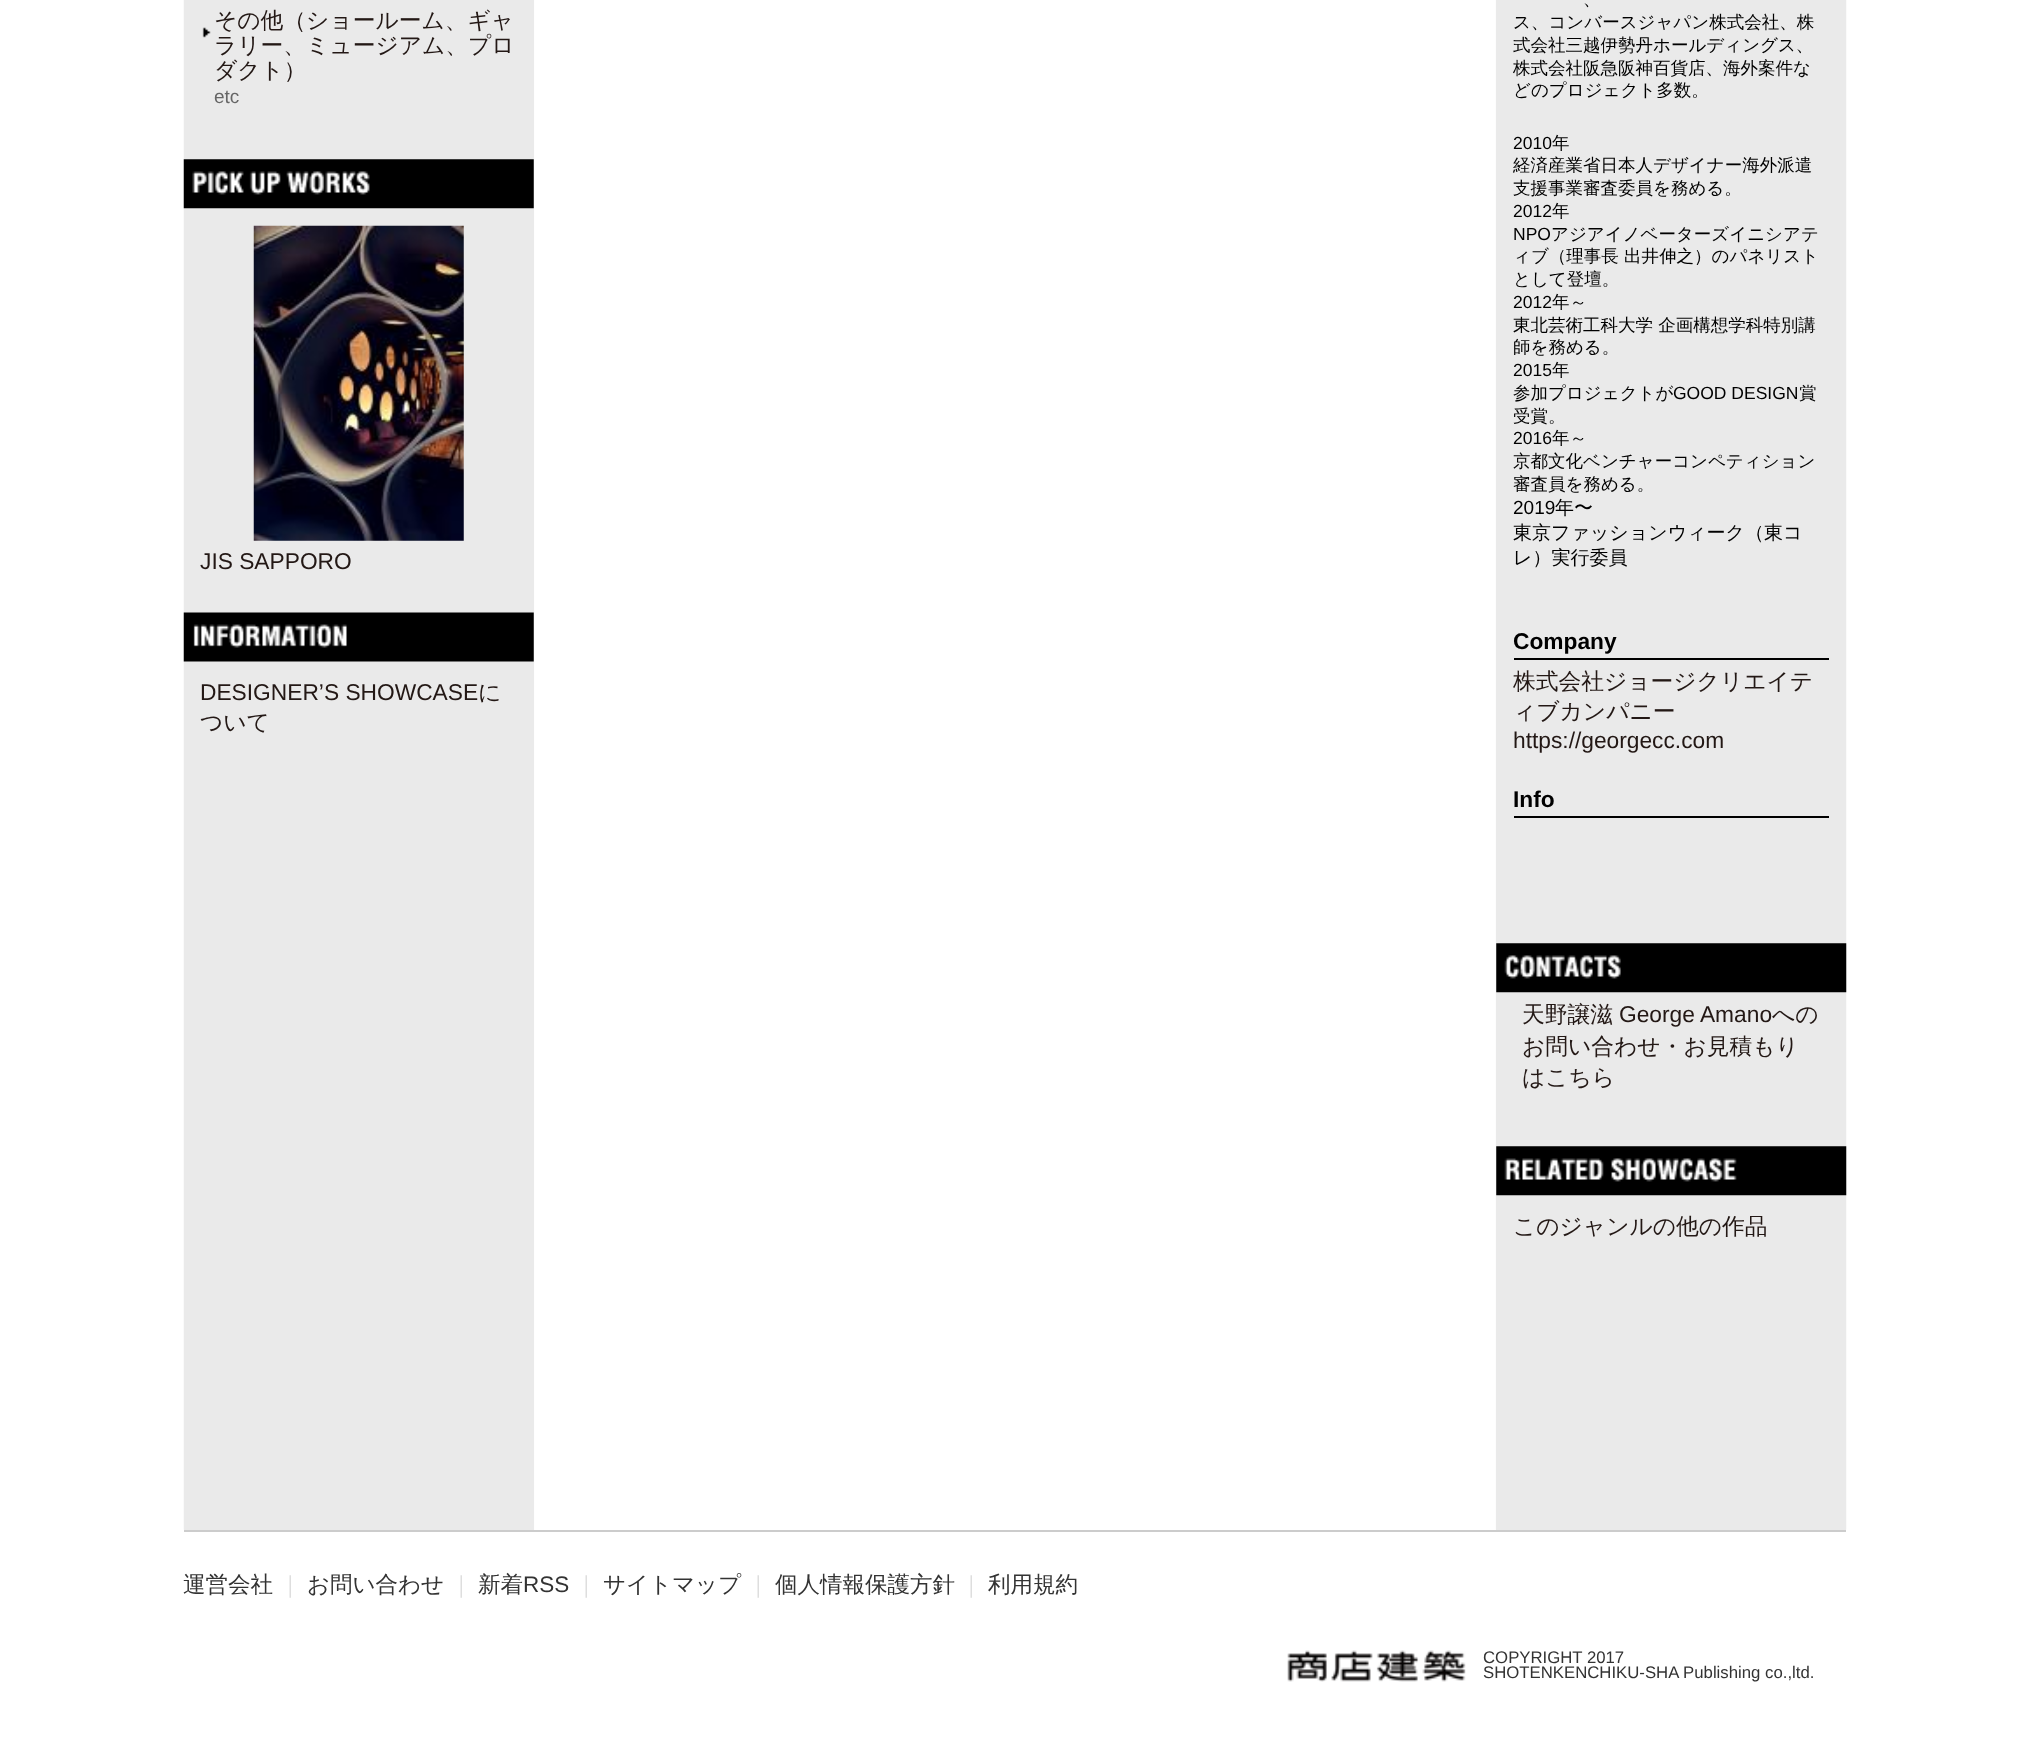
<!DOCTYPE html>
<meta charset="utf-8">
<style>body { margin: 0 } canvas { display: block }</style>
<canvas id="canvas" width="2028" height="1750"></canvas>
<img id="img1" src="img_01.png" hidden>
<img id="img2" src="img_02.png" hidden>
<img id="img3" src="img_03.png" hidden>
<img id="img4" src="img_04.png" hidden>
<img id="img5" src="img_05.png" hidden>
<img id="img6" src="img_06.png" hidden>
<img id="img7" src="img_07.png" hidden>
<img id="img8" src="img_08.png" hidden>
<script>
window.onload = function () {
	const canvas = document.getElementById("canvas");
	const ctx = canvas.getContext("2d");
	ctx.miterLimit = 4;
	ctx.fontKerning = "normal";
	function txt(s, x, y) {
		ctx.fillText(s, x, y);
	}
	function fill(x, y, w, h) {
		ctx.fillRect(x, y, w, h);
	}
	function img(id, x, y, w, h) {
		ctx.drawImage(document.getElementById(id), x, y, w, h);
	}

	ctx.fillStyle = "#FFFFFF";
	fill(0, 0, 2028, 1750);
	img("img1", 183, 0, 1664, 1530);
	ctx.fillStyle = "#EAEAEA";
	fill(184, 0, 350, 1530);
	img("img2", 202, 27, 9, 11);
	img("img3", 183, 159, 351, 50);
	img("img4", 253, 225, 211, 316);
	img("img5", 183, 612, 351, 50);
	fill(1496, 0, 350, 1530);
	ctx.fillStyle = "#000000";
	fill(1514, 658, 315, 2);
	fill(1514, 816, 315, 2);
	img("img6", 1496, 943, 351, 50);
	img("img7", 1496, 1146, 351, 50);
	ctx.fillStyle = "#CCCCCC";
	fill(184, 1530, 1662, 2);
	img("img8", 1287, 1650, 179, 32);
	ctx.font = "500 22.75px WenQuanYi Zen Hei";
	ctx.fillStyle = "#231815";
	txt("その他（ショールーム、ギャ", 214, 28);
	txt("ラリー、ミュージアム、プロ", 214, 53);
	txt("ダクト）", 214, 78);
	ctx.font = "19px Liberation Sans";
	ctx.fillStyle = "#666666";
	txt("etc", 214, 103);
	ctx.font = "22.75px Liberation Sans";
	ctx.fillStyle = "#231815";
	txt("JIS SAPPORO", 200, 569);
	txt("DESIGNER’S SHOWCASE", 200, 700);
	ctx.font = "500 22.75px WenQuanYi Zen Hei";
	txt("に", 478, 700);
	txt("ついて", 200, 730);
	ctx.font = "500 17.5px WenQuanYi Zen Hei";
	ctx.fillStyle = "#000000";
	txt("、", 1583, 5);
	txt("ス、コンバースジャパン株式会社、株", 1513, 28);
	txt("式会社三越伊勢丹ホールディングス、", 1513, 51);
	txt("株式会社阪急阪神百貨店、海外案件な", 1513, 74);
	txt("どのプロジェクト多数。", 1513, 96);
	ctx.font = "17.5px Liberation Sans";
	txt("2010", 1513, 149);
	ctx.font = "500 17.5px WenQuanYi Zen Hei";
	txt("年", 1552, 149);
	txt("経済産業省日本人デザイナー海外派遣", 1513, 171);
	txt("支援事業審査委員を務める。", 1513, 194);
	ctx.font = "17.5px Liberation Sans";
	txt("2012", 1513, 217);
	ctx.font = "500 17.5px WenQuanYi Zen Hei";
	txt("年", 1552, 217);
	ctx.font = "17.5px Liberation Sans";
	txt("NPO", 1513, 240);
	ctx.font = "500 17.5px WenQuanYi Zen Hei";
	txt("アジアイノベーターズイニシアテ", 1551, 240);
	txt("ィブ（理事長 出井伸之）のパネリスト", 1513, 262);
	txt("として登壇。", 1513, 285);
	ctx.font = "17.5px Liberation Sans";
	txt("2012", 1513, 308);
	ctx.font = "500 17.5px WenQuanYi Zen Hei";
	txt("年～", 1552, 308);
	txt("東北芸術工科大学 企画構想学科特別講", 1513, 331);
	txt("師を務める。", 1513, 353);
	ctx.font = "17.5px Liberation Sans";
	txt("2015", 1513, 376);
	ctx.font = "500 17.5px WenQuanYi Zen Hei";
	txt("年", 1552, 376);
	txt("参加プロジェクトが", 1513, 399);
	ctx.font = "17.5px Liberation Sans";
	txt("GOOD DESIGN", 1673, 399);
	ctx.font = "500 17.5px WenQuanYi Zen Hei";
	txt("賞", 1799, 399);
	txt("受賞。", 1513, 422);
	ctx.font = "17.5px Liberation Sans";
	txt("2016", 1513, 444);
	ctx.font = "500 17.5px WenQuanYi Zen Hei";
	txt("年～", 1552, 444);
	txt("京都文化ベンチャーコンペティション", 1513, 467);
	txt("審査員を務める。", 1513, 490);
	ctx.font = "19px Liberation Sans";
	txt("2019", 1513, 514);
	ctx.font = "500 19px WenQuanYi Zen Hei";
	txt("年〜", 1555, 514);
	txt("東京ファッションウィーク（東コ", 1513, 539);
	txt("レ）実行委員", 1513, 564);
	ctx.font = "bold 22.75px Liberation Sans";
	txt("Company", 1513, 649);
	ctx.font = "500 22.75px WenQuanYi Zen Hei";
	ctx.fillStyle = "#231815";
	txt("株式会社ジョージクリエイテ", 1513, 689);
	txt("ィブカンパニー", 1513, 719);
	ctx.font = "22.75px Liberation Sans";
	txt("https://georgecc.com", 1513, 748);
	ctx.font = "bold 22.75px Liberation Sans";
	ctx.fillStyle = "#000000";
	txt("Info", 1513, 807);
	ctx.font = "500 22.75px WenQuanYi Zen Hei";
	ctx.fillStyle = "#231815";
	txt("天野譲滋", 1522, 1022);
	ctx.font = "22.75px Liberation Sans";
	txt("George Amano", 1619, 1022);
	ctx.font = "500 22.75px WenQuanYi Zen Hei";
	txt("への", 1772, 1022);
	txt("お問い合わせ・お見積もり", 1522, 1054);
	txt("はこちら", 1522, 1085);
	txt("このジャンルの他の作品", 1513, 1234);
	ctx.font = "500 22.5px WenQuanYi Zen Hei";
	ctx.fillStyle = "#333333";
	txt("運営会社", 183, 1592);
	ctx.fillStyle = "#DCDCDC";
	txt("｜", 279, 1592);
	ctx.fillStyle = "#333333";
	txt("お問い合わせ", 307, 1592);
	ctx.fillStyle = "#DCDCDC";
	txt("｜", 450, 1592);
	ctx.fillStyle = "#333333";
	txt("新着", 478, 1592);
	ctx.font = "22.5px Liberation Sans";
	txt("RSS", 523, 1592);
	ctx.font = "500 22.5px WenQuanYi Zen Hei";
	ctx.fillStyle = "#DCDCDC";
	txt("｜", 575, 1592);
	ctx.fillStyle = "#333333";
	txt("サイトマップ", 603, 1592);
	ctx.fillStyle = "#DCDCDC";
	txt("｜", 747, 1592);
	ctx.fillStyle = "#333333";
	txt("個人情報保護方針", 775, 1592);
	ctx.fillStyle = "#DCDCDC";
	txt("｜", 960, 1592);
	ctx.fillStyle = "#333333";
	txt("利用規約", 988, 1592);
	ctx.font = "16.75px Liberation Sans";
	txt("COPYRIGHT 2017", 1483, 1663);
	txt("SHOTENKENCHIKU-SHA Publishing co.,ltd.", 1483, 1678);
};
</script>
